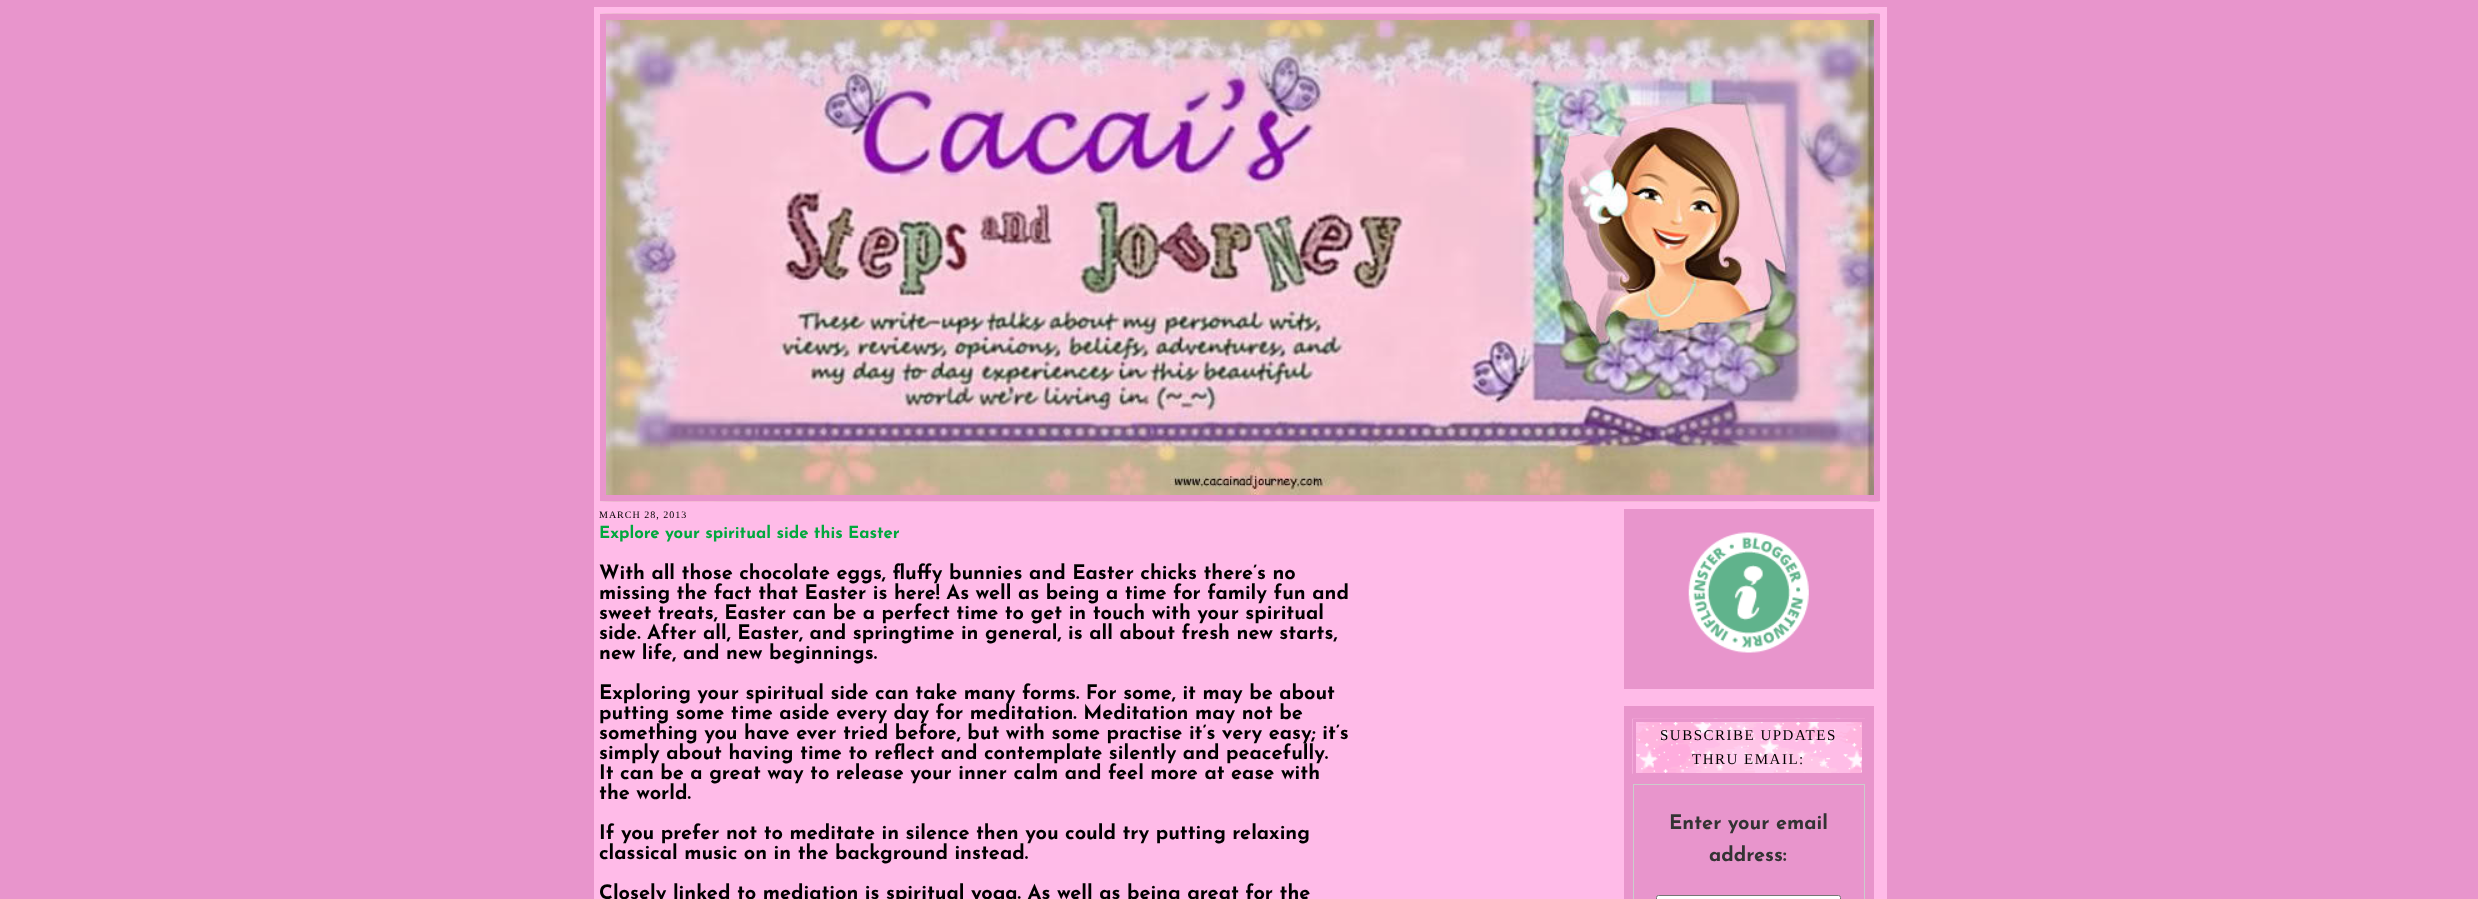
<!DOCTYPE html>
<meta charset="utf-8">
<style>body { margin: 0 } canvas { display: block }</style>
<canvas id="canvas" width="2478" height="899"></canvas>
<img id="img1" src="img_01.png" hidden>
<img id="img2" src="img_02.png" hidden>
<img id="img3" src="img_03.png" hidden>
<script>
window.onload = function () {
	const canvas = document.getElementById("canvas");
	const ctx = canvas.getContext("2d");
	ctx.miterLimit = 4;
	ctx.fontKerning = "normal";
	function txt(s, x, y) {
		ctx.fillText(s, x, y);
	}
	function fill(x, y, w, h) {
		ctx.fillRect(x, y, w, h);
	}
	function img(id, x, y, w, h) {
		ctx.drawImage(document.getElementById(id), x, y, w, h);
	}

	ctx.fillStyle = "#E895CC";
	fill(0, 0, 2478, 899);
	ctx.fillStyle = "#FFBBE8";
	fill(594, 7, 1293, 892);
	img("img1", 600, 13, 1280, 489);
	ctx.strokeStyle = "#E895CC";
	ctx.lineWidth = 6;
	ctx.strokeRect(603, 17, 1274, 481);
	ctx.fillStyle = "#E895CC";
	fill(1624, 509, 250, 180);
	img("img2", 1688, 532, 121, 121);
	fill(1624, 706, 250, 193);
	img("img3", 1632, 718, 233, 56);
	ctx.lineWidth = 3;
	ctx.strokeRect(1634.5, 720.5, 229, 54);
	ctx.strokeStyle = "#CCCCCC";
	ctx.lineWidth = 1;
	ctx.strokeRect(1633.5, 784.5, 231, 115);
	ctx.fillStyle = "#FFFFFF";
	ctx.beginPath();
	ctx.roundRect(1656.5, 895.5, 184, 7, 2);
	ctx.fill();
	ctx.strokeStyle = "#767676";
	ctx.stroke();
	ctx.letterSpacing = "1px";
	ctx.font = "10px Liberation Serif";
	ctx.fillStyle = "#000000";
	txt("MARCH 28, 2013", 599, 518);
	ctx.letterSpacing = "0px";
	ctx.font = "bold 16.75px Josefin Sans";
	ctx.fillStyle = "#00A83D";
	txt("Explore your spiritual side this Easter", 599, 538);
	ctx.font = "bold 20px Josefin Sans";
	ctx.fillStyle = "#000000";
	txt("With all those chocolate eggs, fluffy bunnies and Easter chicks there’s no", 599, 579);
	txt("missing the fact that Easter is here! As well as being a time for family fun and", 599, 599);
	txt("sweet treats, Easter can be a perfect time to get in touch with your spiritual", 599, 619);
	txt("side. After all, Easter, and springtime in general, is all about fresh new starts,", 599, 639);
	txt("new life, and new beginnings.", 599, 659);
	txt("Exploring your spiritual side can take many forms. For some, it may be about", 599, 699);
	txt("putting some time aside every day for meditation. Meditation may not be", 599, 719);
	txt("something you have ever tried before, but with some practise it’s very easy; it’s", 599, 739);
	txt("simply about having time to reflect and contemplate silently and peacefully.", 599, 759);
	txt("It can be a great way to release your inner calm and feel more at ease with", 599, 779);
	txt("the world.", 599, 799);
	txt("If you prefer not to meditate in silence then you could try putting relaxing", 599, 839);
	txt("classical music on in the background instead.", 599, 859);
	txt("Closely linked to mediation is spiritual yoga. As well as being great for the", 599, 899);
	ctx.letterSpacing = "1.5px";
	ctx.font = "15px Liberation Serif";
	txt("SUBSCRIBE UPDATES", 1660, 740);
	txt("THRU EMAIL:", 1692, 764);
	ctx.letterSpacing = "0px";
	ctx.font = "bold 20px Josefin Sans";
	ctx.fillStyle = "#333333";
	txt("Enter your email", 1669, 829);
	txt("address:", 1709, 861);
};
</script>
